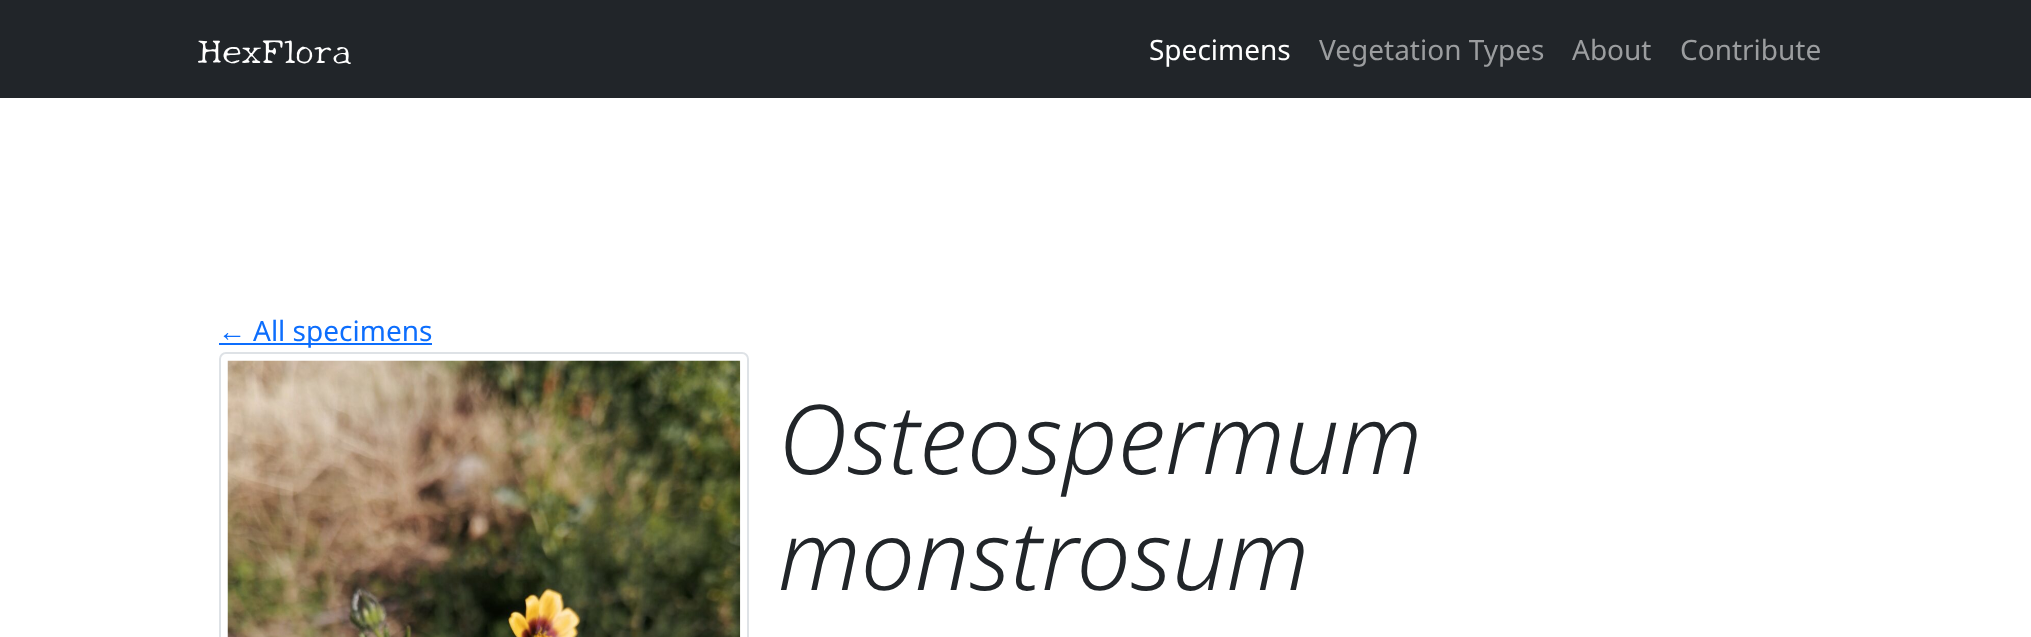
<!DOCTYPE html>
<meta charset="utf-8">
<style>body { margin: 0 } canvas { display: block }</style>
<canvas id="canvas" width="2031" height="637"></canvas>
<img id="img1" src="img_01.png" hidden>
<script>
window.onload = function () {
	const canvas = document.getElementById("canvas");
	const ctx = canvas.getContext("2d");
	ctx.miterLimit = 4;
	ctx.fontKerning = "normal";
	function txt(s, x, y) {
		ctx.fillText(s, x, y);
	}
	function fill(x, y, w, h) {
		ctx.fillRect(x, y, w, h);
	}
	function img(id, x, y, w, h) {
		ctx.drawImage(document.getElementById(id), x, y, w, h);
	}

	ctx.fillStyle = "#FFFFFF";
	fill(0, 0, 2031, 637);
	ctx.fillStyle = "#212529";
	fill(0, 0, 2031, 98);
	ctx.fillStyle = "#0D6EFD";
	fill(219, 343, 213, 2);
	ctx.beginPath();
	ctx.roundRect(220, 353, 528, 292, 6);
	ctx.strokeStyle = "#DEE2E6";
	ctx.lineWidth = 2;
	ctx.stroke();
	img("img1", 227, 360, 514, 277);
	ctx.font = "35px New Tegomin";
	ctx.fillStyle = "#FFFFFF";
	txt("HexFlora", 197, 63);
	ctx.font = "28px Noto Sans";
	txt("Specimens", 1149, 60);
	ctx.fillStyle = "#9B9D9F";
	txt("Vegetation Types", 1319, 60);
	txt("About", 1572, 60);
	txt("Contribute", 1680, 60);
	ctx.font = "28px Liberation Sans";
	ctx.fillStyle = "#0D6EFD";
	txt("←", 218, 341);
	ctx.font = "28px Noto Sans";
	txt("All specimens", 253, 341);
	ctx.font = "italic 300 96.25px Noto Sans";
	ctx.fillStyle = "#212529";
	txt("Osteospermum", 778, 474);
	txt("monstrosum", 778, 590);
};
</script>
